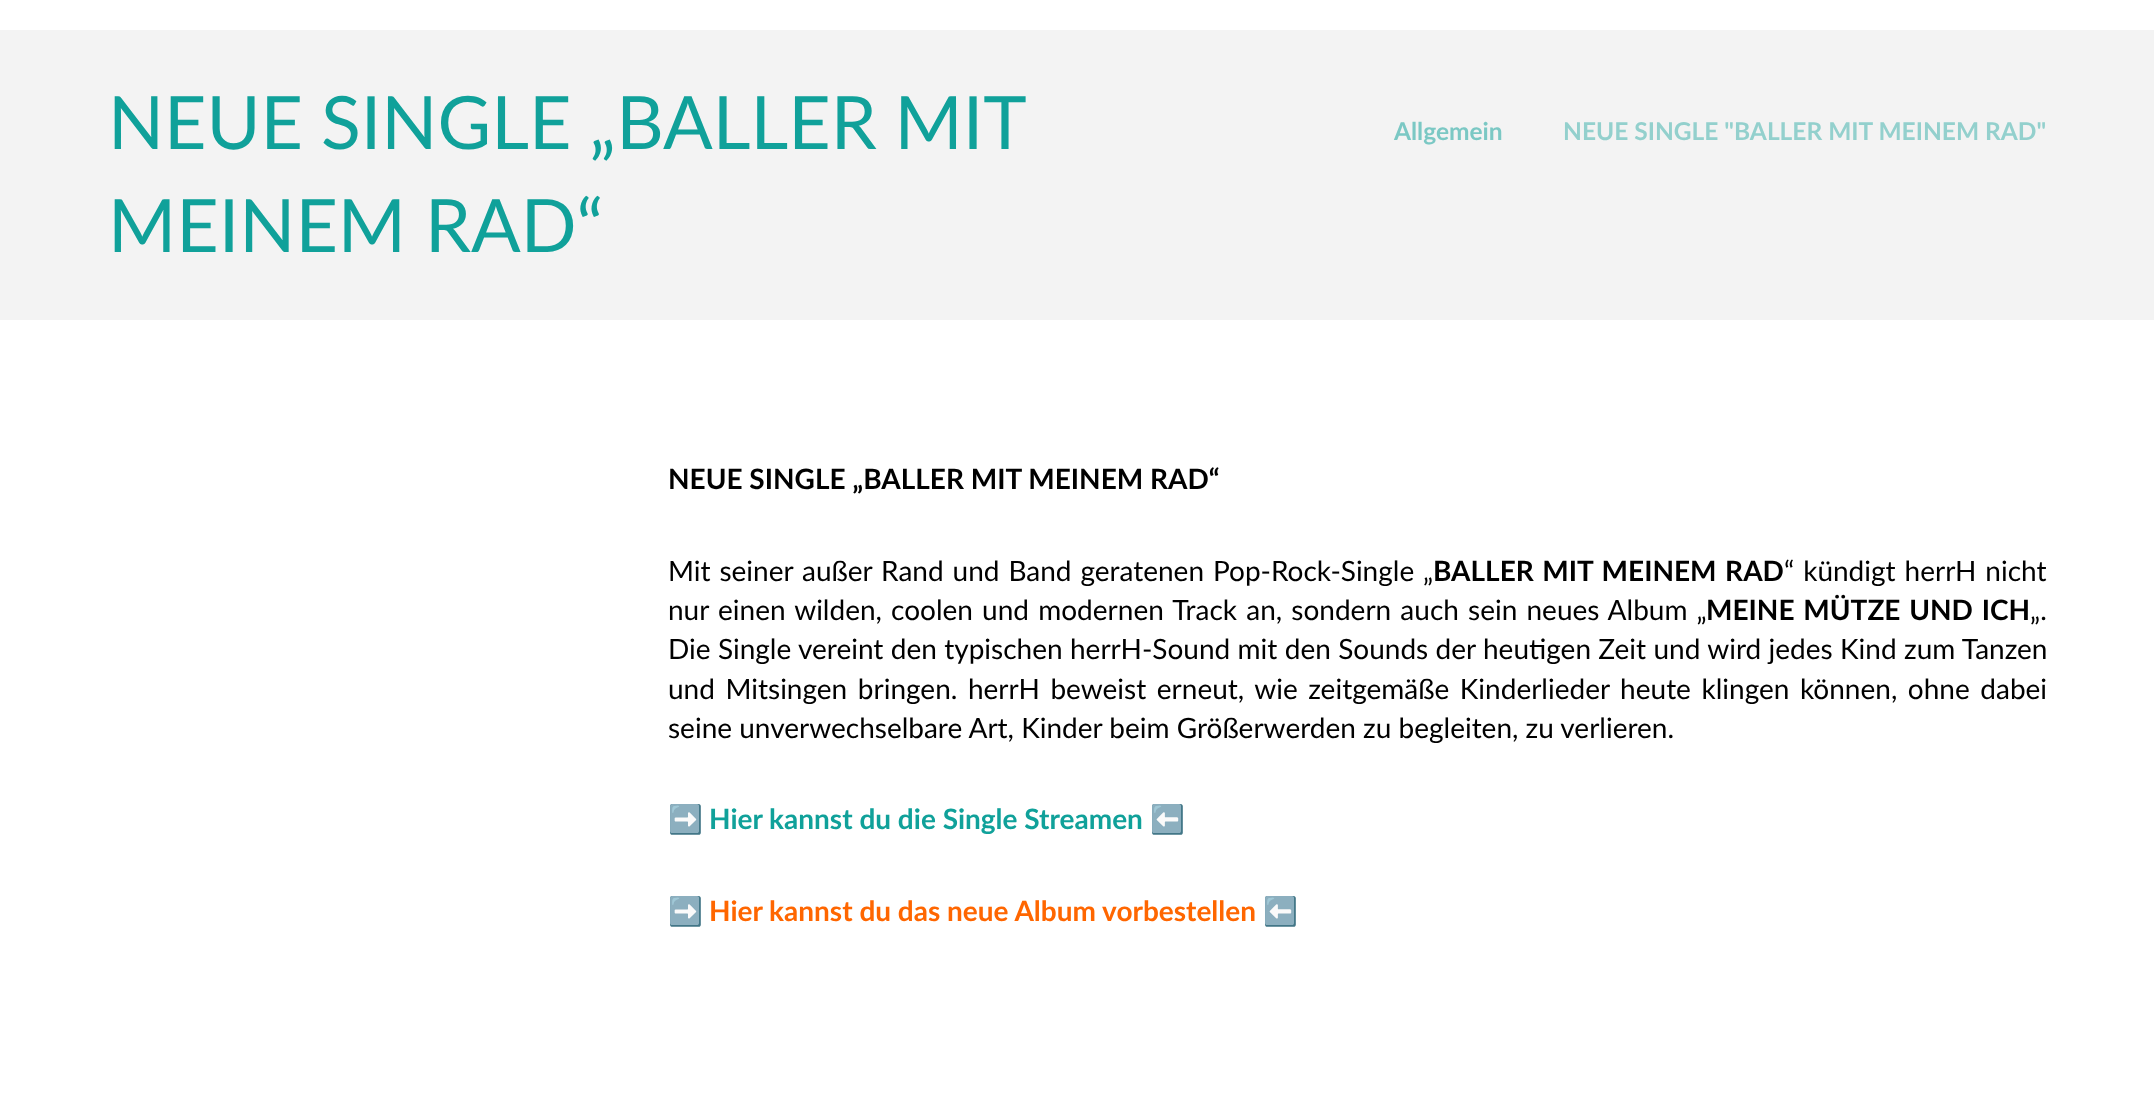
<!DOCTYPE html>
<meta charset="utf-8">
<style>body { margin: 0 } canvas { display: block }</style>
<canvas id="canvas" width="2154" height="1105"></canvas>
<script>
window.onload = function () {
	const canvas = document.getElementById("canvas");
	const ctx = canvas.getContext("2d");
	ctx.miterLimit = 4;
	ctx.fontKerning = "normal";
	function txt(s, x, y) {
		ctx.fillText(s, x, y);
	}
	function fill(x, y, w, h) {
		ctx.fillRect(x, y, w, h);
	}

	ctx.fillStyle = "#FFFFFF";
	fill(0, 0, 2154, 1105);
	ctx.fillStyle = "#F3F3F3";
	fill(0, 30, 2154, 290);
	ctx.wordSpacing = "-1px";
	ctx.font = "73.5px Lato";
	ctx.fillStyle = "#10A19A";
	txt("NEUE SINGLE „BALLER MIT", 108, 149);
	ctx.wordSpacing = "0px";
	txt("MEINEM RAD“", 108, 252);
	ctx.font = "bold 24.5px Lato";
	ctx.fillStyle = "#7BC8C4";
	txt("Allgemein", 1394, 140);
	ctx.fillStyle = "#93D0CD";
	txt("NEUE SINGLE \"BALLER MIT MEINEM RAD\"", 1563, 140);
	ctx.font = "bold 28px Lato";
	ctx.fillStyle = "#000000";
	txt("NEUE SINGLE „BALLER MIT MEINEM RAD“", 668, 489);
	ctx.wordSpacing = "1.75px";
	ctx.font = "28px Lato";
	txt("Mit seiner außer Rand und Band geratenen Pop-Rock-Single „", 668, 581);
	ctx.font = "bold 28px Lato";
	txt("BALLER MIT MEINEM RAD", 1433, 581);
	ctx.font = "28px Lato";
	txt("“ kündigt herrH nicht", 1784, 581);
	ctx.wordSpacing = "2px";
	txt("nur einen wilden, coolen und modernen Track an, sondern auch sein neues Album „", 668, 620);
	ctx.font = "bold 28px Lato";
	txt("MEINE MÜTZE UND ICH", 1706, 620);
	ctx.wordSpacing = "0px";
	ctx.font = "28px Lato";
	txt("„.", 2030, 620);
	ctx.wordSpacing = "0.2px";
	txt("Die Single vereint den typischen herrH-Sound mit den Sounds der heutigen Zeit und wird jedes Kind zum Tanzen", 668, 659);
	ctx.wordSpacing = "3.4px";
	txt("und Mitsingen bringen. herrH beweist erneut, wie zeitgemäße Kinderlieder heute klingen können, ohne dabei", 668, 699);
	ctx.wordSpacing = "0px";
	txt("seine unverwechselbare Art, Kinder beim Größerwerden zu begleiten, zu verlieren.", 668, 738);
	ctx.font = "bold 28px Noto Color Emoji";
	txt("➡️", 668, 829);
	ctx.font = "bold 28px Lato";
	ctx.fillStyle = "#10A19A";
	txt("Hier kannst du die Single Streamen", 709, 829);
	ctx.font = "bold 28px Noto Color Emoji";
	txt("⬅️", 1150, 829);
	ctx.fillStyle = "#000000";
	txt("➡️", 668, 921);
	ctx.font = "bold 28px Lato";
	ctx.fillStyle = "#FF6600";
	txt("Hier kannst du das neue Album vorbestellen", 709, 921);
	ctx.font = "bold 28px Noto Color Emoji";
	txt("⬅️", 1263, 921);
};
</script>
